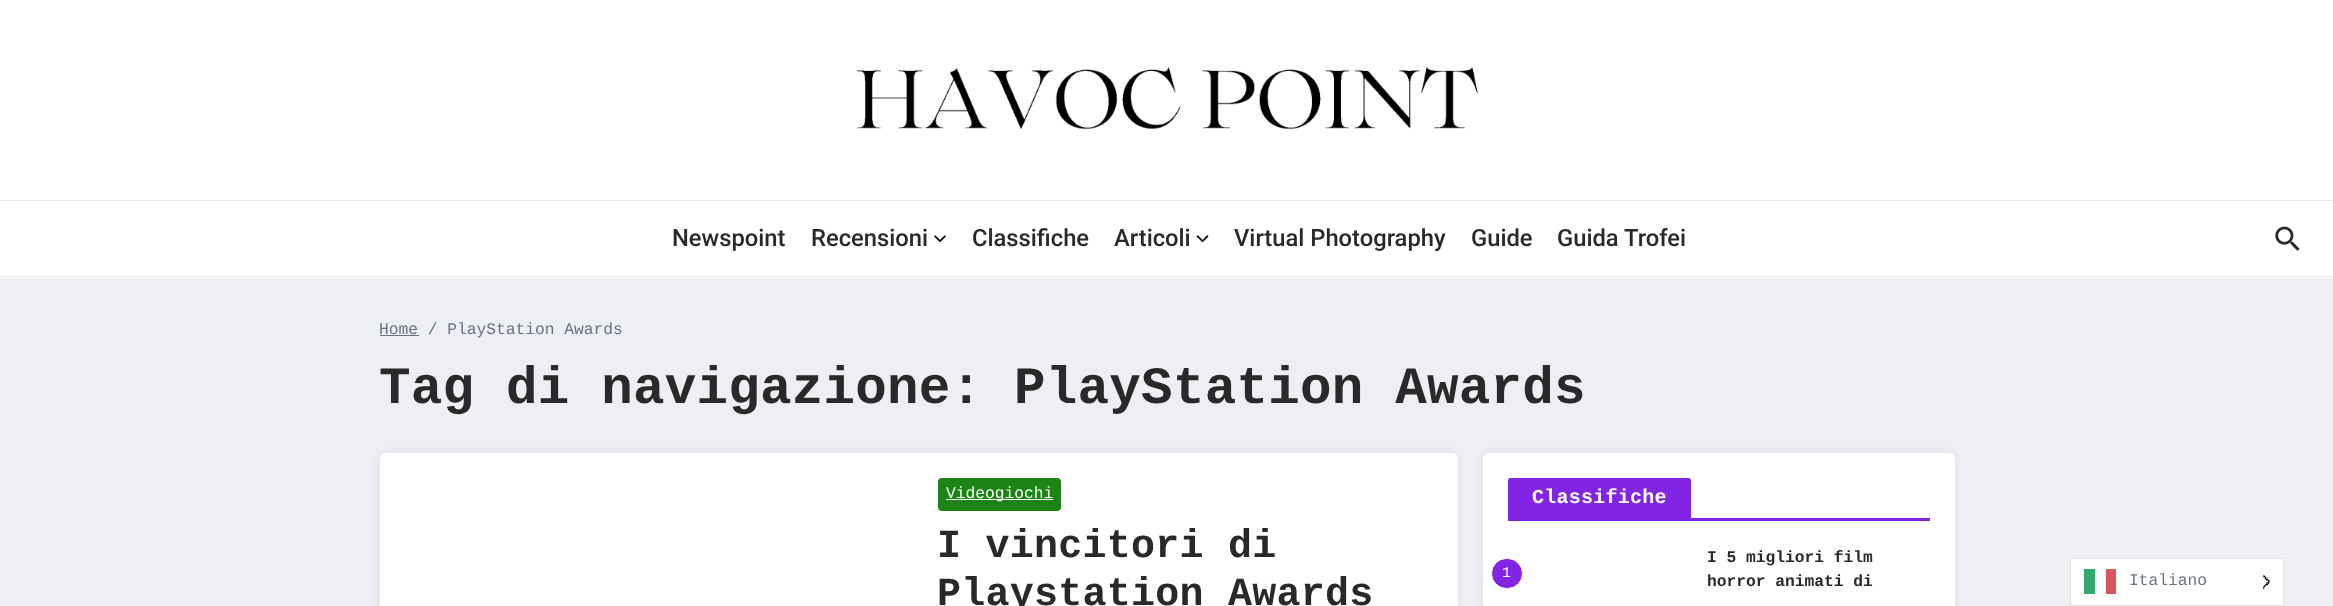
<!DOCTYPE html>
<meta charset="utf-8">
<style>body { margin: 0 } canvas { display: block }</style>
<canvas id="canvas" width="2333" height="606"></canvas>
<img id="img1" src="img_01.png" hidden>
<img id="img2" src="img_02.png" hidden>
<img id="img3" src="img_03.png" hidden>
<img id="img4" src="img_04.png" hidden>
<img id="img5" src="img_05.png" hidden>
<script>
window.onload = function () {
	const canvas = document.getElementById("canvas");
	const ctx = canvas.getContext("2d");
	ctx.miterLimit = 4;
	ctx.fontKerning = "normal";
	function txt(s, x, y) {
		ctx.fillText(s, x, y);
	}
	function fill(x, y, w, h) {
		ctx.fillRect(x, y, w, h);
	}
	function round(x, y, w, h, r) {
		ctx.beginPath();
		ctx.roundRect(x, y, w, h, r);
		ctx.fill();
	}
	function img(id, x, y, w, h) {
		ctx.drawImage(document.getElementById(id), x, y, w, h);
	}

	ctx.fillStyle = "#EEEEF5";
	fill(0, 0, 2333, 606);
	ctx.fillStyle = "#FFFFFF";
	fill(0, 0, 2333, 200);
	ctx.fillStyle = "#E8E8E8";
	fill(0, 200, 2333, 1);
	img("img1", 856, 67, 622, 63);
	ctx.fillStyle = "#FFFFFF";
	fill(0, 201, 2333, 77);
	ctx.fillStyle = "#E8E8E8";
	fill(0, 276, 2333, 1);
	img("img2", 934, 235, 12, 8);
	img("img3", 1196, 235, 13, 8);
	img("img4", 2275, 226, 25, 25);
	ctx.fillStyle = "#67737E";
	fill(380, 335, 39, 1);
	ctx.fillStyle = "rgba(0, 0, 0, 0.05)";
	ctx.filter = "blur(5px)";
	ctx.beginPath();
	ctx.roundRect(379, 451, 1080, 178, 8);
	ctx.fill();
	ctx.filter = "none";
	ctx.fillStyle = "#FFFFFF";
	round(380, 453, 1078, 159, 6);
	ctx.fillStyle = "#1B8415";
	round(938, 478, 123, 33, 4);
	ctx.fillStyle = "#FFFFFF";
	fill(946, 499, 107, 1);
	ctx.fillStyle = "rgba(0, 0, 0, 0.05)";
	ctx.filter = "blur(5px)";
	ctx.beginPath();
	ctx.roundRect(1481, 451, 475, 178, 8);
	ctx.fill();
	ctx.filter = "none";
	ctx.fillStyle = "#FFFFFF";
	round(1483, 453, 472, 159, 6);
	ctx.fillStyle = "#8224E3";
	fill(1508, 518, 422, 3);
	ctx.beginPath();
	ctx.roundRect(1508, 478, 183, 40, [2.5, 2.5, 0, 0]);
	ctx.fill();
	ctx.beginPath();
	ctx.roundRect(1491.5, 558.5, 31, 30, 15);
	ctx.fill();
	ctx.strokeStyle = "#FFFFFF";
	ctx.stroke();
	ctx.fillStyle = "#FFFFFF";
	ctx.beginPath();
	ctx.rect(2070.5, 558.5, 213, 47);
	ctx.fill();
	ctx.strokeStyle = "#E0E0E0";
	ctx.stroke();
	ctx.fillStyle = "#33A86B";
	fill(2084, 569, 11, 25);
	ctx.fillStyle = "#D8555F";
	fill(2106, 569, 10, 25);
	img("img5", 2263, 575, 7, 14);
	ctx.font = "500 23.75px Roboto";
	ctx.fillStyle = "#292929";
	txt("Newspoint", 672, 246);
	txt("Recensioni", 811, 246);
	txt("Classifiche", 972, 246);
	txt("Articoli", 1114, 246);
	txt("Virtual Photography", 1234, 246);
	txt("Guide", 1471, 246);
	txt("Guida Trofei", 1557, 246);
	ctx.font = "16.25px Liberation Mono";
	ctx.fillStyle = "#67737E";
	txt("Home / PlayStation Awards", 379, 334);
	ctx.letterSpacing = "0.25px";
	ctx.font = "bold 52.5px Liberation Mono";
	ctx.fillStyle = "#292929";
	txt("Tag di navigazione: PlayStation Awards", 379, 403);
	ctx.letterSpacing = "0px";
	ctx.font = "16.25px Liberation Mono";
	ctx.fillStyle = "#FFFFFF";
	txt("Videogiochi", 946, 498);
	ctx.letterSpacing = "0.25px";
	ctx.font = "bold 40px Liberation Mono";
	ctx.fillStyle = "#292929";
	txt("I vincitori di", 937, 557);
	txt("Playstation Awards", 937, 605);
	ctx.font = "bold 20px Liberation Mono";
	ctx.fillStyle = "#FFFFFF";
	txt("Classifiche", 1532, 503);
	ctx.letterSpacing = "0px";
	ctx.font = "15px Liberation Mono";
	txt("1", 1502, 577);
	ctx.font = "bold 16.25px Liberation Mono";
	ctx.fillStyle = "#292929";
	txt("I 5 migliori film", 1707, 562);
	txt("horror animati di", 1707, 586);
	ctx.font = "16.25px Liberation Mono";
	ctx.fillStyle = "#67737E";
	txt("Italiano", 2129, 585);
};
</script>
